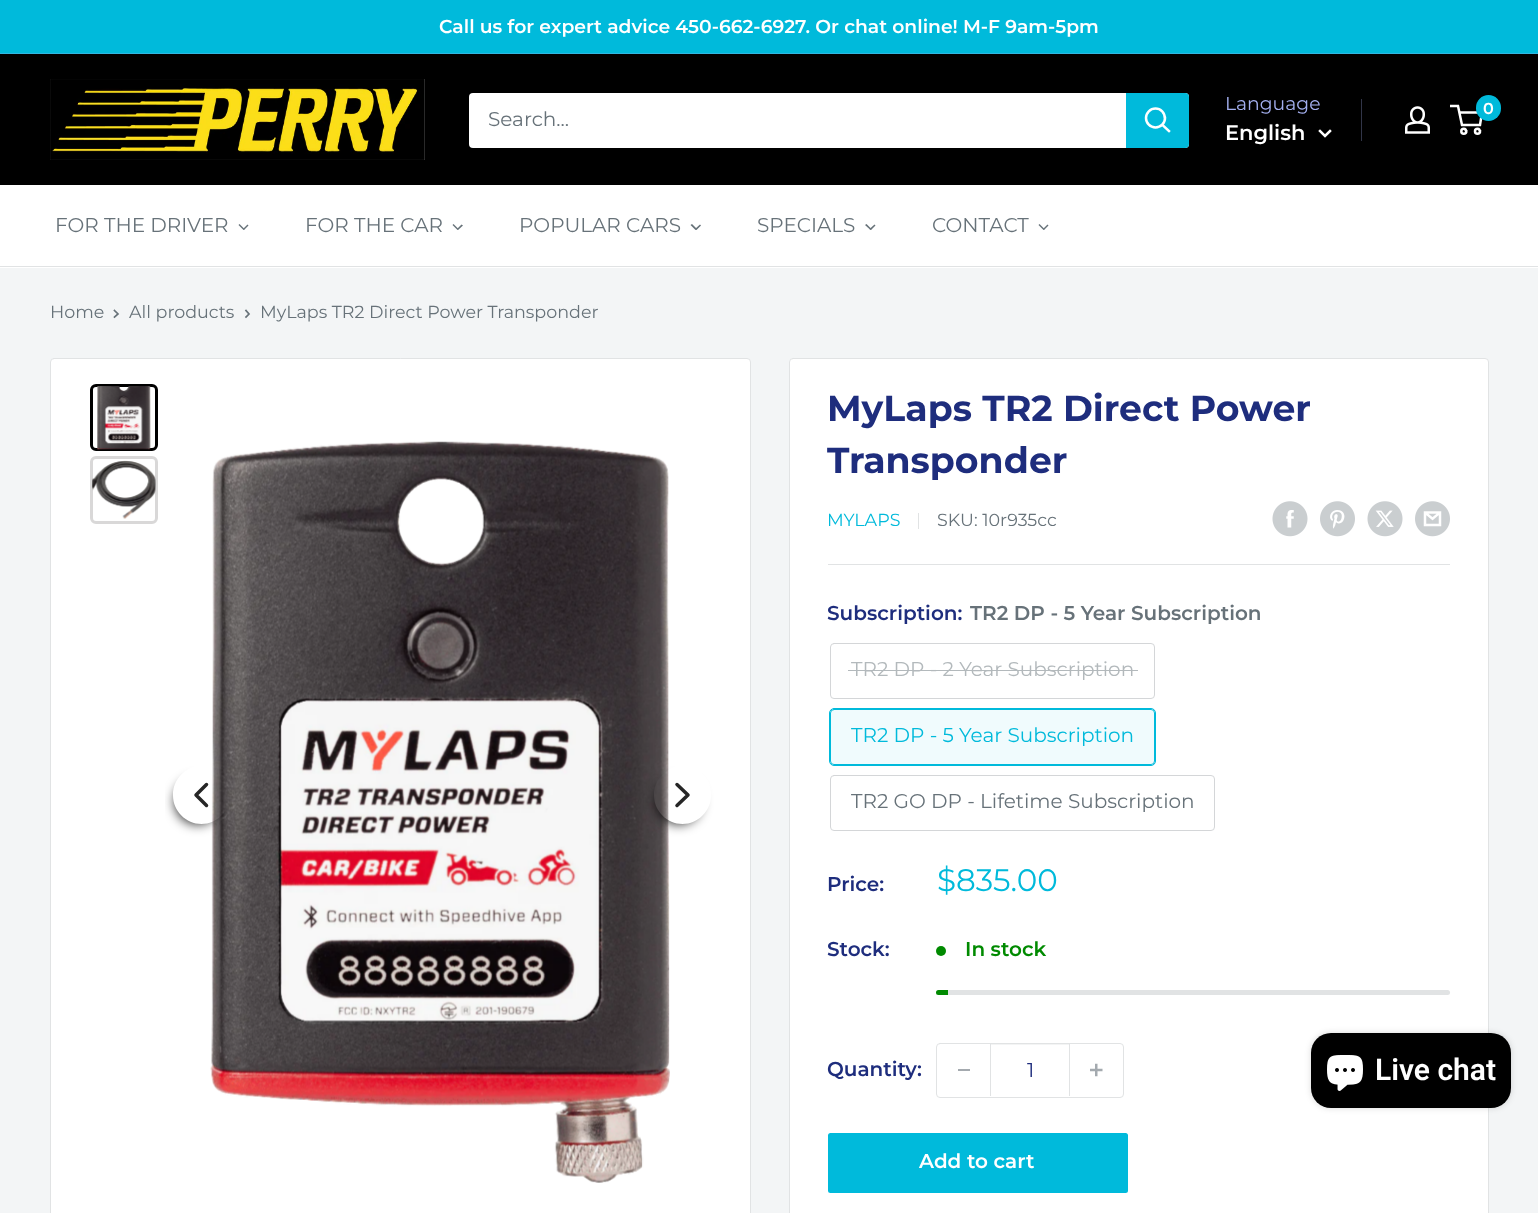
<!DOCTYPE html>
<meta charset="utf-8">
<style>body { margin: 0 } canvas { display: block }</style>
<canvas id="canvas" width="1538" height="1213"></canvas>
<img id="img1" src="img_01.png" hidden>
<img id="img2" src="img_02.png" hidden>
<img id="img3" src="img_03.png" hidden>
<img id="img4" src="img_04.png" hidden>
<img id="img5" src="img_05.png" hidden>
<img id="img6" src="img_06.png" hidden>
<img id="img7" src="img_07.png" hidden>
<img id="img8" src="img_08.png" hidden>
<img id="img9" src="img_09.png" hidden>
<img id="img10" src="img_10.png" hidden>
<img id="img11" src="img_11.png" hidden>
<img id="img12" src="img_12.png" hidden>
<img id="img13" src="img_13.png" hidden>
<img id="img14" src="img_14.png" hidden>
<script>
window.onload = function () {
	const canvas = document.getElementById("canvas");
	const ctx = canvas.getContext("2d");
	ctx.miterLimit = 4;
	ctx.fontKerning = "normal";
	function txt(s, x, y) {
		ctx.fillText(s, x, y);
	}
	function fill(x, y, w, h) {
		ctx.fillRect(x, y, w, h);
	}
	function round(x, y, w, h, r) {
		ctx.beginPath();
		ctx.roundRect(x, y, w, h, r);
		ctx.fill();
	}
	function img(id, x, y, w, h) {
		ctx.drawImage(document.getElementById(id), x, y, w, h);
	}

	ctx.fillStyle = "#F3F5F6";
	fill(0, 0, 1538, 1213);
	ctx.fillStyle = "#00BADB";
	fill(0, 0, 1538, 53);
	ctx.fillStyle = "#31B7E1";
	fill(0, 53, 1538, 1);
	ctx.fillStyle = "#000000";
	fill(0, 54, 1538, 131);
	img("img1", 50, 79, 375, 81);
	ctx.fillStyle = "#FFFFFF";
	round(469, 93, 720, 55, 4);
	ctx.fillStyle = "#00BADB";
	ctx.beginPath();
	ctx.roundRect(1126, 93, 63, 55, [0, 4, 4, 0]);
	ctx.fill();
	ctx.beginPath();
	ctx.moveTo(1169, 131);
	ctx.lineTo(1162.5, 125);
	ctx.strokeStyle = "#FFFFFF";
	ctx.lineWidth = 2.5;
	ctx.lineCap = "square";
	ctx.stroke();
	ctx.beginPath();
	ctx.arc(1155.5, 118, 9.5, 0, Math.PI * 2);
	ctx.stroke();
	ctx.beginPath();
	ctx.moveTo(1330, 131);
	ctx.lineTo(1325, 136);
	ctx.lineTo(1320, 131);
	ctx.stroke();
	ctx.fillStyle = "#313548";
	fill(1361, 99, 1, 42);
	img("img2", 1405, 106, 25, 28);
	ctx.beginPath();
	ctx.arc(1463.8, 131.2, 2.5, 0, Math.PI * 2);
	ctx.stroke();
	ctx.beginPath();
	ctx.arc(1477.5, 131.2, 2.5, 0, Math.PI * 2);
	ctx.stroke();
	ctx.beginPath();
	ctx.moveTo(1459, 112.5);
	ctx.lineTo(1482, 112.5);
	ctx.lineTo(1480, 125);
	ctx.lineTo(1462, 125);
	ctx.lineTo(1458, 106);
	ctx.lineTo(1450, 106);
	ctx.lineCap = "butt";
	ctx.stroke();
	ctx.fillStyle = "#00BADB";
	round(1476, 95, 25, 26, 12.5);
	ctx.fillStyle = "#FFFFFF";
	fill(0, 185, 1538, 83);
	ctx.fillStyle = "#E1E3E4";
	fill(0, 266, 1538, 1);
	ctx.fillStyle = "#677279";
	ctx.beginPath();
	ctx.moveTo(247.5, 224.5);
	ctx.lineTo(248.5, 225.5);
	ctx.lineTo(244, 230);
	ctx.lineTo(243, 229);
	ctx.closePath();
	ctx.fill();
	ctx.beginPath();
	ctx.moveTo(239.5, 224);
	ctx.lineTo(244.5, 229);
	ctx.lineTo(243.5, 230);
	ctx.lineTo(238.5, 225);
	ctx.closePath();
	ctx.fill();
	ctx.beginPath();
	ctx.moveTo(461.5, 224.5);
	ctx.lineTo(463, 225.5);
	ctx.lineTo(458, 230);
	ctx.lineTo(457, 229);
	ctx.closePath();
	ctx.fill();
	ctx.beginPath();
	ctx.moveTo(453.5, 224);
	ctx.lineTo(458.5, 229);
	ctx.lineTo(457.5, 230);
	ctx.lineTo(452.5, 225);
	ctx.closePath();
	ctx.fill();
	ctx.beginPath();
	ctx.moveTo(700, 224.5);
	ctx.lineTo(701, 225.5);
	ctx.lineTo(696.5, 230);
	ctx.lineTo(695, 229);
	ctx.closePath();
	ctx.fill();
	ctx.beginPath();
	ctx.moveTo(692, 224);
	ctx.lineTo(697, 229);
	ctx.lineTo(695.5, 230);
	ctx.lineTo(690.5, 225);
	ctx.closePath();
	ctx.fill();
	ctx.beginPath();
	ctx.moveTo(874.5, 224.5);
	ctx.lineTo(875.5, 225.5);
	ctx.lineTo(871, 230);
	ctx.lineTo(869.5, 229);
	ctx.closePath();
	ctx.fill();
	ctx.beginPath();
	ctx.moveTo(866.5, 224);
	ctx.lineTo(871.5, 229);
	ctx.lineTo(870.5, 230);
	ctx.lineTo(865, 225);
	ctx.closePath();
	ctx.fill();
	ctx.beginPath();
	ctx.moveTo(1047.5, 224.5);
	ctx.lineTo(1048.5, 225.5);
	ctx.lineTo(1044, 230);
	ctx.lineTo(1043, 229);
	ctx.closePath();
	ctx.fill();
	ctx.beginPath();
	ctx.moveTo(1039.5, 224);
	ctx.lineTo(1044.5, 229);
	ctx.lineTo(1043.5, 230);
	ctx.lineTo(1038.5, 225);
	ctx.closePath();
	ctx.fill();
	ctx.beginPath();
	ctx.moveTo(114.5, 310.5);
	ctx.lineTo(118, 314);
	ctx.lineTo(114.5, 317);
	ctx.strokeStyle = "#677279";
	ctx.lineWidth = 1.7;
	ctx.lineCap = "square";
	ctx.stroke();
	ctx.beginPath();
	ctx.moveTo(246, 310.5);
	ctx.lineTo(249, 314);
	ctx.lineTo(246, 317);
	ctx.stroke();
	ctx.fillStyle = "#FFFFFF";
	ctx.beginPath();
	ctx.roundRect(50.5, 358.5, 700, 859, 3.5);
	ctx.fill();
	ctx.strokeStyle = "#E1E3E4";
	ctx.lineWidth = 1;
	ctx.stroke();
	ctx.beginPath();
	ctx.roundRect(91.5, 385.5, 65, 64, 4.5);
	ctx.strokeStyle = "#000000";
	ctx.lineWidth = 3;
	ctx.stroke();
	img("img3", 97, 386, 54, 64);
	img("img4", 97, 386, 54, 64);
	ctx.beginPath();
	ctx.roundRect(91.5, 457.5, 65, 65, 4.5);
	ctx.strokeStyle = "#D9D8D8";
	ctx.stroke();
	img("img5", 92, 460, 64, 59);
	img("img6", 92, 461, 64, 58);
	img("img7", 210, 441, 460, 742);
	img("img8", 210, 441, 460, 742);
	ctx.save();
	ctx.beginPath();
	ctx.rect(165, 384, 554, 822);
	ctx.clip();
	ctx.beginPath();
	ctx.moveTo(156, 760);
	ctx.lineTo(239, 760);
	ctx.lineTo(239, 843);
	ctx.lineTo(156, 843);
	ctx.closePath();
	ctx.moveTo(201.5, 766);
	ctx.bezierCurveTo(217, 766, 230, 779, 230, 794.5);
	ctx.lineTo(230, 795.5);
	ctx.bezierCurveTo(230, 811, 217, 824, 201.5, 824);
	ctx.bezierCurveTo(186, 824, 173, 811, 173, 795.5);
	ctx.lineTo(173, 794.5);
	ctx.bezierCurveTo(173, 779, 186, 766, 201.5, 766);
	ctx.closePath();
	ctx.clip("evenodd");
	ctx.fillStyle = "rgba(0, 0, 0, 0.85)";
	ctx.filter = "blur(6px)";
	ctx.beginPath();
	ctx.roundRect(175, 779, 45, 45, 22.5);
	ctx.fill();
	ctx.filter = "none";
	ctx.restore();
	ctx.beginPath();
	ctx.moveTo(206.5, 784.5);
	ctx.lineTo(196, 795);
	ctx.lineTo(206.5, 805.5);
	ctx.strokeStyle = "#262626";
	ctx.lineWidth = 3.5;
	ctx.lineCap = "round";
	ctx.lineJoin = "round";
	ctx.stroke();
	ctx.save();
	ctx.beginPath();
	ctx.moveTo(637, 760);
	ctx.lineTo(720, 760);
	ctx.lineTo(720, 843);
	ctx.lineTo(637, 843);
	ctx.closePath();
	ctx.moveTo(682.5, 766);
	ctx.bezierCurveTo(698, 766, 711, 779, 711, 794.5);
	ctx.lineTo(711, 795.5);
	ctx.bezierCurveTo(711, 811, 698, 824, 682.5, 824);
	ctx.bezierCurveTo(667, 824, 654, 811, 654, 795.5);
	ctx.lineTo(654, 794.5);
	ctx.bezierCurveTo(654, 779, 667, 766, 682.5, 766);
	ctx.closePath();
	ctx.clip("evenodd");
	ctx.fillStyle = "rgba(0, 0, 0, 0.85)";
	ctx.filter = "blur(6px)";
	ctx.beginPath();
	ctx.roundRect(656, 779, 45, 45, 22.5);
	ctx.fill();
	ctx.filter = "none";
	ctx.restore();
	ctx.beginPath();
	ctx.moveTo(677, 784.5);
	ctx.lineTo(688, 795);
	ctx.lineTo(677, 805.5);
	ctx.stroke();
	ctx.beginPath();
	ctx.roundRect(789.5, 358.5, 699, 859, 3.5);
	ctx.fill();
	ctx.strokeStyle = "#E1E3E4";
	ctx.lineWidth = 1;
	ctx.lineJoin = "miter";
	ctx.stroke();
	ctx.fillStyle = "#E1E3E4";
	fill(918, 513, 1, 16);
	img("img9", 1272, 501, 36, 36);
	img("img10", 1320, 501, 35, 36);
	img("img11", 1367, 501, 36, 36);
	img("img12", 1415, 501, 35, 36);
	fill(828, 564, 622, 1);
	ctx.beginPath();
	ctx.roundRect(830.5, 643.5, 324, 55, 3.5);
	ctx.strokeStyle = "#D4D6D8";
	ctx.stroke();
	ctx.fillStyle = "#B3B9BC";
	fill(848, 670, 290, 1);
	ctx.beginPath();
	ctx.roundRect(829.5, 708.5, 326, 57, 4.5);
	ctx.strokeStyle = "#00BADB";
	ctx.stroke();
	ctx.fillStyle = "rgba(0, 186, 219, 0.06)";
	fill(830, 709, 325, 56);
	ctx.beginPath();
	ctx.roundRect(830.5, 709.5, 324, 55, 3.5);
	ctx.stroke();
	ctx.beginPath();
	ctx.roundRect(830.5, 775.5, 384, 55, 3.5);
	ctx.strokeStyle = "#D4D6D8";
	ctx.stroke();
	ctx.fillStyle = "#008A00";
	ctx.beginPath();
	ctx.arc(941, 951, 5, 0, Math.PI * 2);
	ctx.fill();
	ctx.fillStyle = "#E1E3E4";
	round(936, 990, 514, 5, 2.5);
	ctx.fillStyle = "#008A00";
	ctx.beginPath();
	ctx.roundRect(936, 990, 12, 5, [2.5, 0, 0, 2.5]);
	ctx.fill();
	ctx.beginPath();
	ctx.roundRect(936.5, 1043.5, 187, 54, 3.5);
	ctx.strokeStyle = "#E1E3E4";
	ctx.stroke();
	ctx.fillStyle = "#A4AAAF";
	fill(958, 1069, 12, 2);
	ctx.fillStyle = "#F3F4F4";
	fill(991, 1044, 78, 1);
	ctx.fillStyle = "#E1E3E4";
	fill(1069, 1044, 1, 52);
	fill(990, 1044, 1, 52);
	img("img13", 1090, 1063, 13, 14);
	ctx.fillStyle = "#00BADB";
	round(828, 1133, 300, 60, 2.5);
	ctx.fillStyle = "rgba(0, 0, 0, 0.15)";
	ctx.filter = "blur(3px)";
	ctx.beginPath();
	ctx.roundRect(1311, 1033, 200, 75, 20);
	ctx.fill();
	ctx.filter = "none";
	ctx.fillStyle = "#000000";
	round(1311, 1033, 200, 75, 20);
	img("img14", 1327, 1055, 36, 36);
	ctx.font = "600 18.75px Montserrat";
	ctx.fillStyle = "#FFFFFF";
	txt("Call us for expert advice 450-662-6927. Or chat online! M-F 9am-5pm", 439, 33);
	ctx.font = "20px Montserrat";
	ctx.fillStyle = "#677279";
	txt("Search...", 488, 126);
	ctx.font = "18.75px Montserrat";
	ctx.fillStyle = "#A3AFEF";
	txt("Language", 1225, 110);
	ctx.font = "600 21px Montserrat";
	ctx.fillStyle = "#FFFFFF";
	txt("English", 1225, 140);
	ctx.font = "600 16px Montserrat";
	txt("0", 1483, 114);
	ctx.font = "20px Montserrat";
	ctx.fillStyle = "#677279";
	txt("FOR THE DRIVER", 55, 232);
	txt("FOR THE CAR", 305, 232);
	txt("POPULAR CARS", 519, 232);
	txt("SPECIALS", 757, 232);
	txt("CONTACT", 932, 232);
	ctx.font = "17.5px Montserrat";
	txt("Home", 50, 318);
	txt("All products", 129, 318);
	txt("MyLaps TR2 Direct Power Transponder", 260, 318);
	ctx.font = "bold 36.25px Montserrat";
	ctx.fillStyle = "#1E2D7D";
	txt("MyLaps TR2 Direct Power", 827, 421);
	txt("Transponder", 827, 473);
	ctx.font = "17.5px Montserrat";
	ctx.fillStyle = "#00BADB";
	txt("MYLAPS", 827, 526);
	ctx.fillStyle = "#677279";
	txt("SKU: 10r935cc", 937, 526);
	ctx.font = "600 20px Montserrat";
	ctx.fillStyle = "#1E2D7D";
	txt("Subscription:", 827, 620);
	ctx.fillStyle = "#677279";
	txt("TR2 DP - 5 Year Subscription", 970, 620);
	ctx.font = "20px Montserrat";
	ctx.fillStyle = "#B3B9BC";
	txt("TR2 DP - 2 Year Subscription", 851, 676);
	ctx.fillStyle = "#00BADB";
	txt("TR2 DP - 5 Year Subscription", 851, 742);
	ctx.fillStyle = "#677279";
	txt("TR2 GO DP - Lifetime Subscription", 851, 808);
	ctx.font = "600 20px Montserrat";
	ctx.fillStyle = "#1E2D7D";
	txt("Price:", 827, 891);
	ctx.font = "31px Montserrat";
	ctx.fillStyle = "#00BADB";
	txt("$835.00", 937, 891);
	ctx.font = "600 20px Montserrat";
	ctx.fillStyle = "#1E2D7D";
	txt("Stock:", 827, 956);
	ctx.fillStyle = "#008A00";
	txt("In stock", 965, 956);
	ctx.fillStyle = "#1E2D7D";
	txt("Quantity:", 827, 1076);
	ctx.font = "20px Montserrat";
	txt("1", 1027, 1077);
	ctx.font = "600 20px Montserrat";
	ctx.fillStyle = "#FFFFFF";
	txt("Add to cart", 919, 1168);
	ctx.font = "600 30px Roboto";
	txt("Live chat", 1375, 1080);
};
</script>
